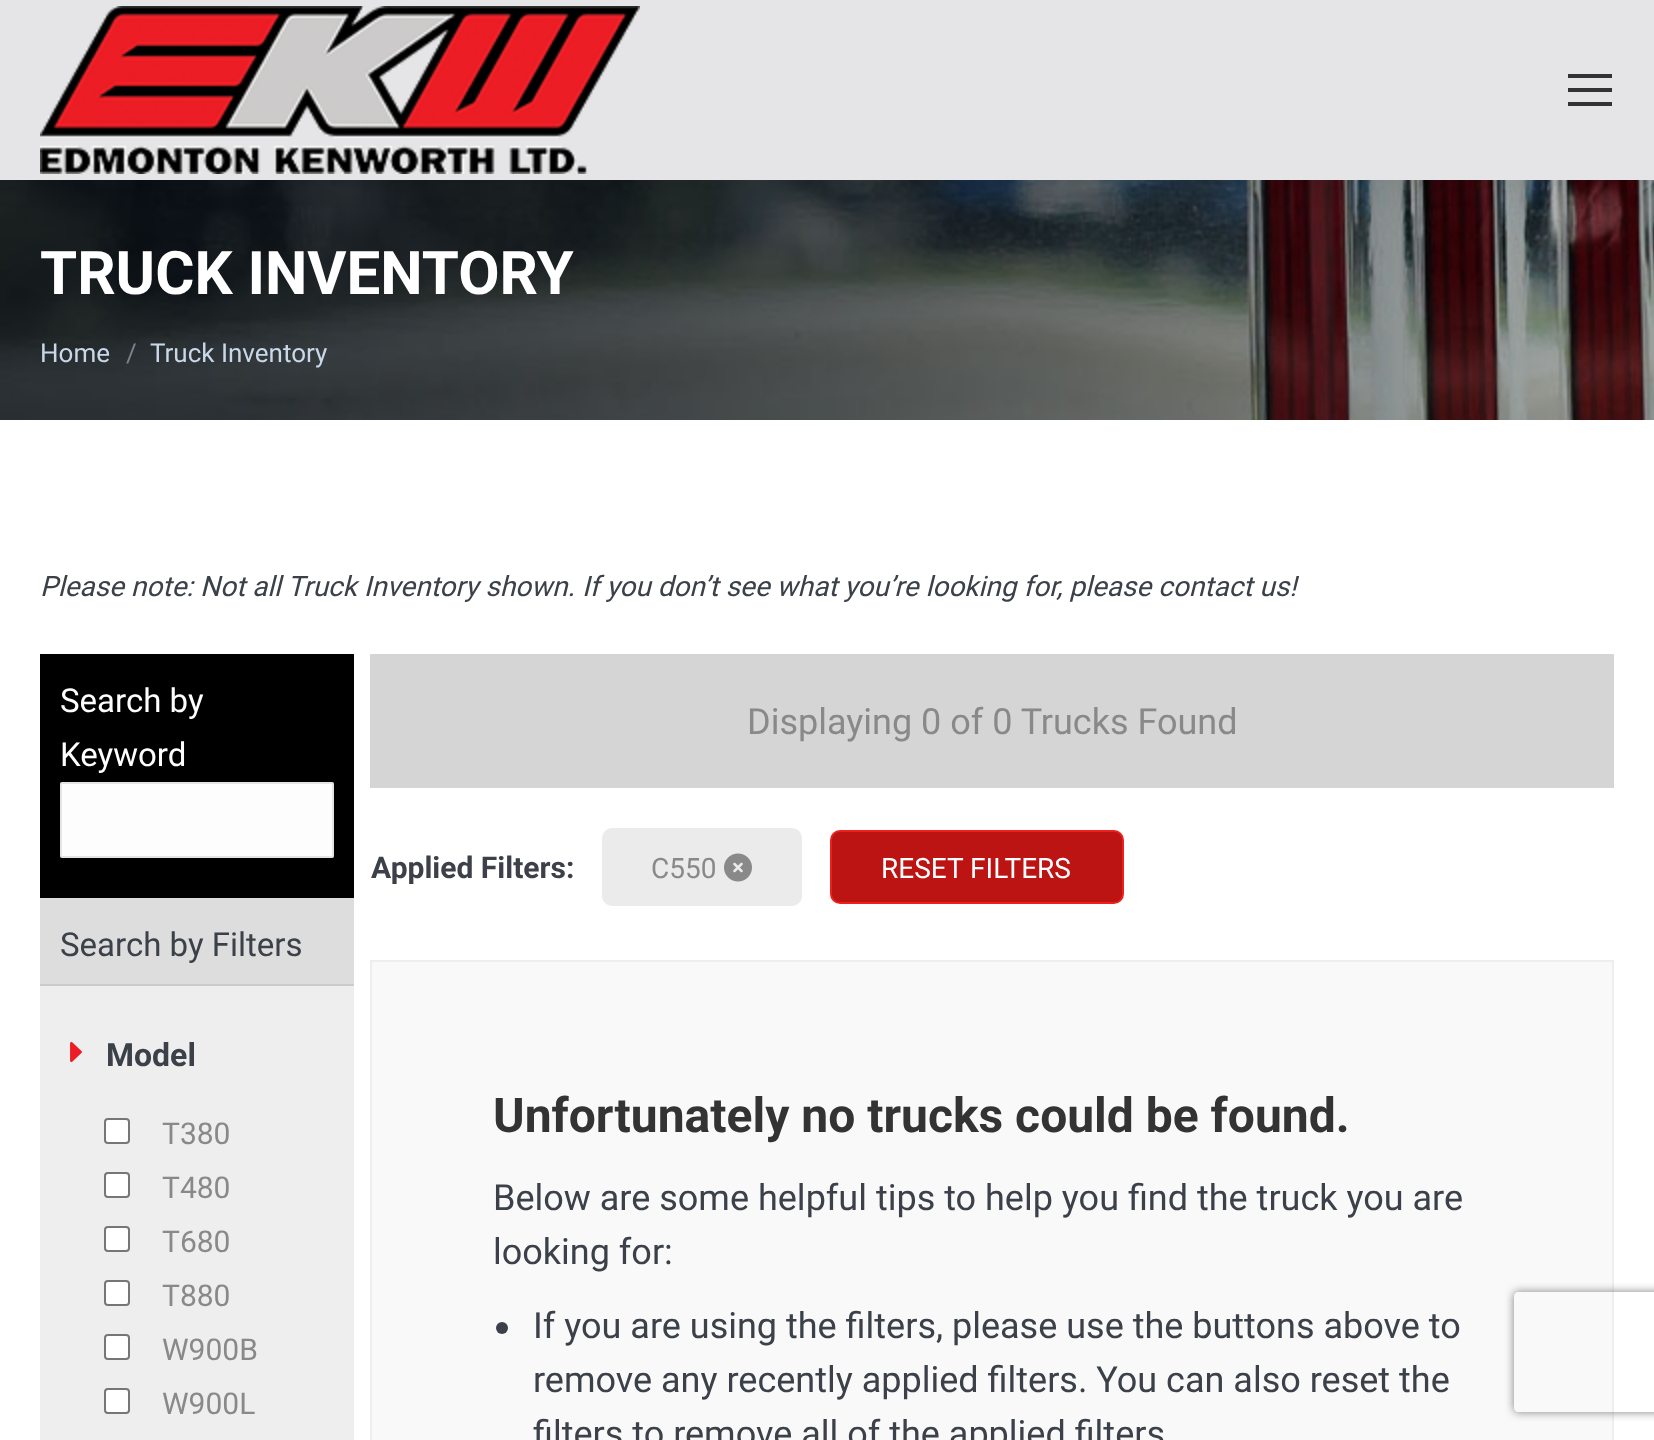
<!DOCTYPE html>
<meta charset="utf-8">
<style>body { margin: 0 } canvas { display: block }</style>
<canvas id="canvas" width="1654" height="1440"></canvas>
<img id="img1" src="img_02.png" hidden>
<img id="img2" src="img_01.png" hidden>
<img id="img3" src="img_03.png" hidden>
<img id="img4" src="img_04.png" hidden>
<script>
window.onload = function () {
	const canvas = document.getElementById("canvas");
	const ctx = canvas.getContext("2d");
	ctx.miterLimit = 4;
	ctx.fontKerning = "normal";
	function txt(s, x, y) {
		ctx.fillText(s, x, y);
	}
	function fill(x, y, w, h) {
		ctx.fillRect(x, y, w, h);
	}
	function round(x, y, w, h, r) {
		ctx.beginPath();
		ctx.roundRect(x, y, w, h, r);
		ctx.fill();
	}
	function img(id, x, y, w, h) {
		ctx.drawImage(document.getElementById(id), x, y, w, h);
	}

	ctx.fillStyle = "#FFFFFF";
	fill(0, 0, 1654, 1440);
	img("img1", 0, 180, 1654, 240);
	ctx.fillStyle = "rgba(0, 0, 0, 0.07)";
	ctx.filter = "blur(15px)";
	ctx.beginPath();
	ctx.rect(-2, -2, 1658, 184);
	ctx.fill();
	ctx.filter = "none";
	ctx.fillStyle = "#E5E5E8";
	fill(0, 0, 1654, 180);
	img("img2", 40, 6, 600, 168);
	ctx.fillStyle = "#333333";
	fill(1568, 74, 44, 4);
	fill(1568, 88, 44, 4);
	fill(1568, 102, 44, 4);
	ctx.fillStyle = "#EEEEEE";
	fill(40, 986, 314, 454);
	ctx.fillStyle = "#000000";
	fill(40, 654, 314, 244);
	ctx.fillStyle = "#FDFDFD";
	round(60, 782, 274, 76, 2);
	ctx.beginPath();
	ctx.roundRect(61, 783, 272, 74, 1);
	ctx.strokeStyle = "rgba(51, 51, 51, 0.12)";
	ctx.lineWidth = 2;
	ctx.stroke();
	ctx.fillStyle = "#DDDDDD";
	fill(40, 898, 314, 86);
	ctx.fillStyle = "#CCCCCC";
	fill(40, 984, 314, 2);
	img("img3", 70, 1042, 12, 20);
	ctx.fillStyle = "#FFFFFF";
	ctx.beginPath();
	ctx.roundRect(105, 1119, 24, 24, 3);
	ctx.fill();
	ctx.strokeStyle = "#767676";
	ctx.stroke();
	ctx.beginPath();
	ctx.roundRect(105, 1173, 24, 24, 3);
	ctx.fill();
	ctx.stroke();
	ctx.beginPath();
	ctx.roundRect(105, 1227, 24, 24, 3);
	ctx.fill();
	ctx.stroke();
	ctx.beginPath();
	ctx.roundRect(105, 1281, 24, 24, 3);
	ctx.fill();
	ctx.stroke();
	ctx.beginPath();
	ctx.roundRect(105, 1335, 24, 24, 3);
	ctx.fill();
	ctx.stroke();
	ctx.beginPath();
	ctx.roundRect(105, 1389, 24, 24, 3);
	ctx.fill();
	ctx.stroke();
	ctx.fillStyle = "#D5D5D6";
	fill(370, 654, 1244, 134);
	ctx.fillStyle = "#EBEBEB";
	round(602, 828, 200, 78, 10);
	img("img4", 724, 853, 28, 29);
	ctx.fillStyle = "#BB1412";
	ctx.beginPath();
	ctx.roundRect(831, 831, 292, 72, 9);
	ctx.fill();
	ctx.strokeStyle = "#EC211D";
	ctx.stroke();
	ctx.fillStyle = "#F9F9F9";
	ctx.beginPath();
	ctx.rect(371, 961, 1242, 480);
	ctx.fill();
	ctx.strokeStyle = "#EEEEEE";
	ctx.stroke();
	ctx.fillStyle = "#3B4049";
	ctx.beginPath();
	ctx.arc(502, 1328, 6, 0, Math.PI * 2);
	ctx.fill();
	ctx.save();
	ctx.beginPath();
	ctx.moveTo(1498, 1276);
	ctx.lineTo(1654, 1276);
	ctx.lineTo(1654, 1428);
	ctx.lineTo(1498, 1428);
	ctx.closePath();
	ctx.moveTo(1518, 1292);
	ctx.lineTo(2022, 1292);
	ctx.bezierCurveTo(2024, 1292, 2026, 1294, 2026, 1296);
	ctx.lineTo(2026, 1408);
	ctx.bezierCurveTo(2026, 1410, 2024, 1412, 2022, 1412);
	ctx.lineTo(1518, 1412);
	ctx.bezierCurveTo(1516, 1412, 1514, 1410, 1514, 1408);
	ctx.lineTo(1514, 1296);
	ctx.bezierCurveTo(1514, 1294, 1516, 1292, 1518, 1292);
	ctx.closePath();
	ctx.clip("evenodd");
	ctx.fillStyle = "#808080";
	ctx.filter = "blur(5px)";
	ctx.beginPath();
	ctx.roundRect(1514, 1292, 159, 120, 4);
	ctx.fill();
	ctx.filter = "none";
	ctx.restore();
	ctx.font = "bold 60px Roboto";
	ctx.fillStyle = "#FFFFFF";
	txt("TRUCK INVENTORY", 40, 294);
	ctx.font = "26px Roboto";
	ctx.fillStyle = "#C9D8E8";
	txt("Home", 40, 362);
	ctx.fillStyle = "#79838D";
	txt("/", 126, 362);
	ctx.fillStyle = "#C9D8E8";
	txt("Truck Inventory", 150, 362);
	ctx.font = "italic 28px Roboto";
	ctx.fillStyle = "#3B4049";
	txt("Please note: Not all Truck Inventory shown. If you don’t see what you’re looking for, please contact us!", 40, 596);
	ctx.font = "33px Roboto";
	ctx.fillStyle = "#FFFFFF";
	txt("Search by", 60, 712);
	txt("Keyword", 60, 766);
	ctx.fillStyle = "#3B4049";
	txt("Search by Filters", 60, 956);
	ctx.font = "bold 32px Roboto";
	txt("Model", 106, 1066);
	ctx.font = "30px Roboto";
	ctx.fillStyle = "#898989";
	txt("T380", 162, 1144);
	txt("T480", 162, 1198);
	txt("T680", 162, 1252);
	txt("T880", 162, 1306);
	txt("W900B", 162, 1360);
	txt("W900L", 162, 1414);
	ctx.font = "36px Roboto";
	txt("Displaying 0 of 0 Trucks Found", 747, 734);
	ctx.font = "bold 30px Roboto";
	ctx.fillStyle = "#3B4049";
	txt("Applied Filters:", 371, 878);
	ctx.font = "28px Roboto";
	ctx.fillStyle = "#898989";
	txt("C550", 651, 878);
	ctx.fillStyle = "#FFFFFF";
	txt("RESET FILTERS", 881, 878);
	ctx.font = "bold 48px Roboto";
	ctx.fillStyle = "#333333";
	txt("Unfortunately no trucks could be found.", 493, 1132);
	ctx.font = "36px Roboto";
	ctx.fillStyle = "#3B4049";
	txt("Below are some helpful tips to help you find the truck you are", 493, 1210);
	txt("looking for:", 493, 1264);
	txt("If you are using the filters, please use the buttons above to", 533, 1338);
	txt("remove any recently applied filters. You can also reset the", 533, 1392);
	txt("filters to remove all of the applied filters", 533, 1446);
};
</script>
